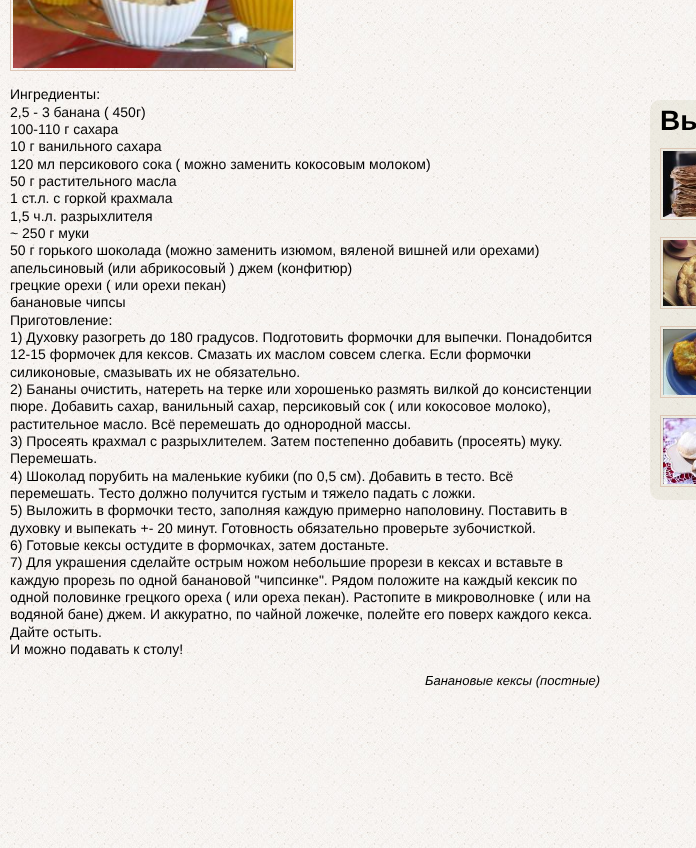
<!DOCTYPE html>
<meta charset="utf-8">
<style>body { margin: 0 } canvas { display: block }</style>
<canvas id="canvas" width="696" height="848"></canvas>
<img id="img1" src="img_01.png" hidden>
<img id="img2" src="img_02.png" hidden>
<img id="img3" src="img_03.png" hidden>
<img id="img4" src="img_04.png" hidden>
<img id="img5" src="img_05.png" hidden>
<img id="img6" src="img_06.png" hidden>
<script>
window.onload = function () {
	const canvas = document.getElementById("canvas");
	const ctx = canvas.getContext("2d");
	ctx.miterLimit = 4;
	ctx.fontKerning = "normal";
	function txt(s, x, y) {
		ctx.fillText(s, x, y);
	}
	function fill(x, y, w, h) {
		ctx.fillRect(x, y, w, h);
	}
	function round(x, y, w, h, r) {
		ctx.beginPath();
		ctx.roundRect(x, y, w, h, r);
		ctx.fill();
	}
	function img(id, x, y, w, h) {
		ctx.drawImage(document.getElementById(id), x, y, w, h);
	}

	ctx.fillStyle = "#FFFFFF";
	fill(0, 0, 696, 848);
	img("img1", 0, 0, 696, 848);
	ctx.strokeStyle = "#DDC7B6";
	ctx.strokeRect(10.5, -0.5, 285, 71);
	img("img2", 13, 0, 280, 68);
	ctx.fillStyle = "rgba(196, 196, 160, 0.2)";
	round(650, 100, 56, 400, 10);
	ctx.strokeRect(660.5, 148.5, 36, 71);
	img("img3", 663, 151, 33, 66);
	ctx.strokeRect(660.5, 237.5, 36, 71);
	img("img4", 663, 240, 33, 66);
	ctx.strokeRect(660.5, 326.5, 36, 71);
	img("img5", 663, 329, 33, 66);
	ctx.strokeRect(660.5, 415.5, 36, 71);
	img("img6", 663, 418, 33, 66);
	ctx.font = "14px Liberation Sans";
	ctx.fillStyle = "#000000";
	txt("Ингредиенты:", 10, 99);
	txt("2,5 - 3 банана ( 450г)", 10, 117);
	txt("100-110 г сахара", 10, 134);
	txt("10 г ванильного сахара", 10, 151);
	txt("120 мл персикового сока ( можно заменить кокосовым молоком)", 10, 169);
	txt("50 г растительного масла", 10, 186);
	txt("1 ст.л. с горкой крахмала", 10, 203);
	txt("1,5 ч.л. разрыхлителя", 10, 221);
	txt("~ 250 г муки", 10, 238);
	txt("50 г горького шоколада (можно заменить изюмом, вяленой вишней или орехами)", 10, 255);
	txt("апельсиновый (или абрикосовый ) джем (конфитюр)", 10, 273);
	txt("грецкие орехи ( или орехи пекан)", 10, 290);
	txt("банановые чипсы", 10, 307);
	txt("Приготовление:", 10, 325);
	txt("1) Духовку разогреть до 180 градусов. Подготовить формочки для выпечки. Понадобится", 10, 342);
	txt("12-15 формочек для кексов. Смазать их маслом совсем слегка. Если формочки", 10, 359);
	txt("силиконовые, смазывать их не обязательно.", 10, 377);
	txt("2) Бананы очистить, натереть на терке или хорошенько размять вилкой до консистенции", 10, 394);
	txt("пюре. Добавить сахар, ванильный сахар, персиковый сок ( или кокосовое молоко),", 10, 411);
	txt("растительное масло. Всё перемешать до однородной массы.", 10, 429);
	txt("3) Просеять крахмал с разрыхлителем. Затем постепенно добавить (просеять) муку.", 10, 446);
	txt("Перемешать.", 10, 463);
	txt("4) Шоколад порубить на маленькие кубики (по 0,5 см). Добавить в тесто. Всё", 10, 481);
	txt("перемешать. Тесто должно получится густым и тяжело падать с ложки.", 10, 498);
	txt("5) Выложить в формочки тесто, заполняя каждую примерно наполовину. Поставить в", 10, 515);
	txt("духовку и выпекать +- 20 минут. Готовность обязательно проверьте зубочисткой.", 10, 533);
	txt("6) Готовые кексы остудите в формочках, затем достаньте.", 10, 550);
	txt("7) Для украшения сделайте острым ножом небольшие прорези в кексах и вставьте в", 10, 567);
	txt("каждую прорезь по одной банановой \"чипсинке\". Рядом положите на каждый кексик по", 10, 585);
	txt("одной половинке грецкого ореха ( или ореха пекан). Растопите в микроволновке ( или на", 10, 602);
	txt("водяной бане) джем. И аккуратно, по чайной ложечке, полейте его поверх каждого кекса.", 10, 619);
	txt("Дайте остыть.", 10, 637);
	txt("И можно подавать к столу!", 10, 654);
	ctx.font = "italic 13px Liberation Sans";
	txt("Банановые кексы (постные)", 425, 685);
	ctx.font = "bold 28px Liberation Sans";
	txt("Вы", 660, 130);
};
</script>
